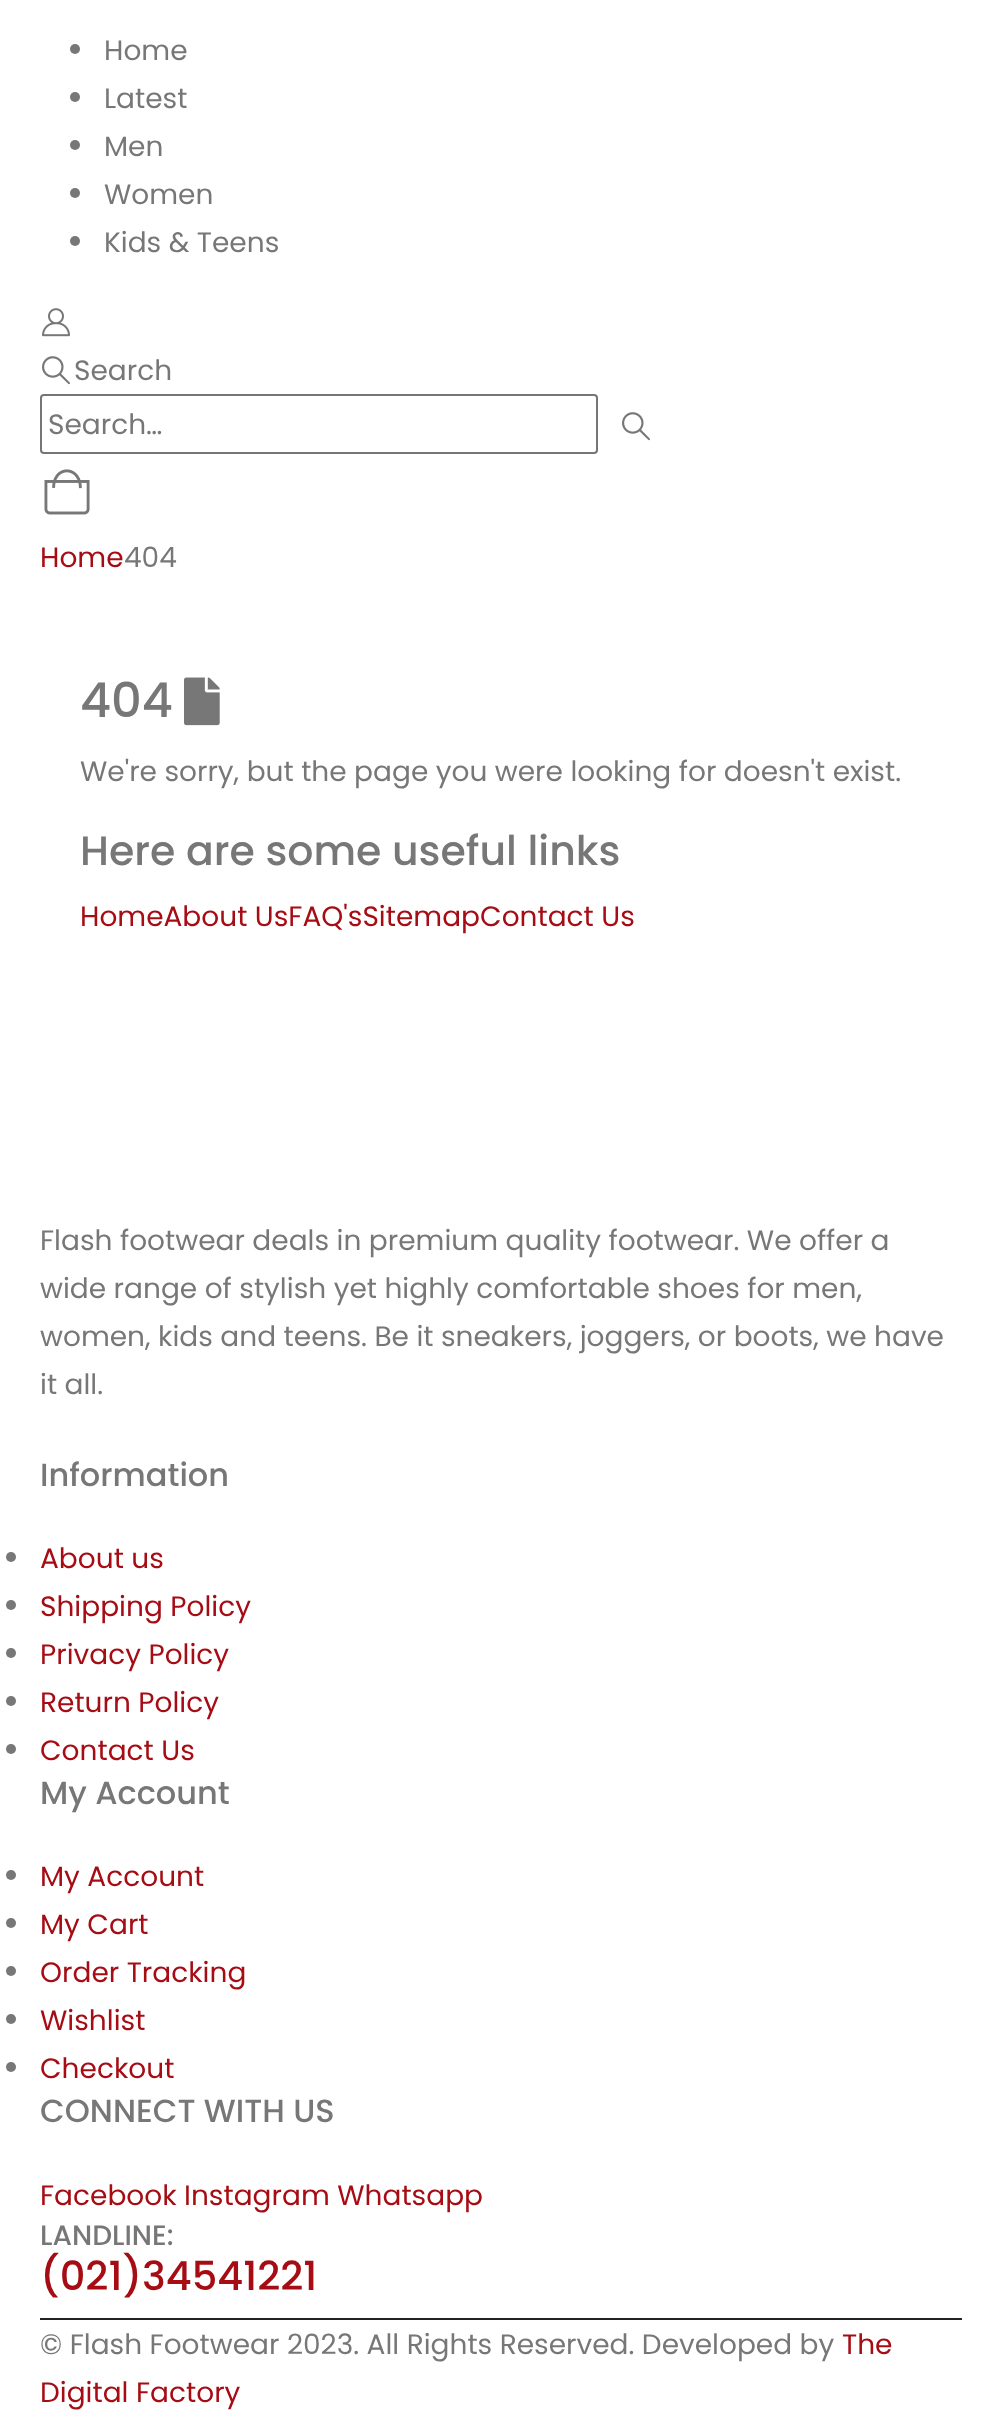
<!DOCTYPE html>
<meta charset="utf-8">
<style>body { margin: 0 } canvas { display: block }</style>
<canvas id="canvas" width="1001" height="2432"></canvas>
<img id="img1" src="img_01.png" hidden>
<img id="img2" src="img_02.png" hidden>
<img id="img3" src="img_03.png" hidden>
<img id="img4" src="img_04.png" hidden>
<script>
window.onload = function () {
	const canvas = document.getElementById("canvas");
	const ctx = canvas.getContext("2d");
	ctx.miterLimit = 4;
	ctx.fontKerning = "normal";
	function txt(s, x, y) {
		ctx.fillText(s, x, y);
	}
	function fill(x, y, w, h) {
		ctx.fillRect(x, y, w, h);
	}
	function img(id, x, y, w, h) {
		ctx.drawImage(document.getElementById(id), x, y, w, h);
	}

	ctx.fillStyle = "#FFFFFF";
	fill(0, 0, 1001, 2432);
	ctx.fillStyle = "#777777";
	ctx.beginPath();
	ctx.arc(75, 49, 5, 0, Math.PI * 2);
	ctx.fill();
	ctx.beginPath();
	ctx.arc(75, 97, 5, 0, Math.PI * 2);
	ctx.fill();
	ctx.beginPath();
	ctx.arc(75, 145, 5, 0, Math.PI * 2);
	ctx.fill();
	ctx.beginPath();
	ctx.arc(75, 193, 5, 0, Math.PI * 2);
	ctx.fill();
	ctx.beginPath();
	ctx.arc(75, 241, 5, 0, Math.PI * 2);
	ctx.fill();
	img("img1", 42, 308, 28, 29);
	img("img2", 42, 356, 28, 29);
	ctx.beginPath();
	ctx.roundRect(41, 395, 556, 58, 3);
	ctx.strokeStyle = "#767676";
	ctx.lineWidth = 2;
	ctx.stroke();
	img("img2", 622, 412, 28, 29);
	img("img3", 44, 469, 46, 46);
	img("img4", 184, 677, 36, 49);
	ctx.beginPath();
	ctx.arc(11, 1557, 5, 0, Math.PI * 2);
	ctx.fill();
	ctx.beginPath();
	ctx.arc(11, 1605, 5, 0, Math.PI * 2);
	ctx.fill();
	ctx.beginPath();
	ctx.arc(11, 1653, 5, 0, Math.PI * 2);
	ctx.fill();
	ctx.beginPath();
	ctx.arc(11, 1701, 5, 0, Math.PI * 2);
	ctx.fill();
	ctx.beginPath();
	ctx.arc(11, 1749, 5, 0, Math.PI * 2);
	ctx.fill();
	ctx.beginPath();
	ctx.arc(11, 1875, 5, 0, Math.PI * 2);
	ctx.fill();
	ctx.beginPath();
	ctx.arc(11, 1923, 5, 0, Math.PI * 2);
	ctx.fill();
	ctx.beginPath();
	ctx.arc(11, 1971, 5, 0, Math.PI * 2);
	ctx.fill();
	ctx.beginPath();
	ctx.arc(11, 2019, 5, 0, Math.PI * 2);
	ctx.fill();
	ctx.beginPath();
	ctx.arc(11, 2067, 5, 0, Math.PI * 2);
	ctx.fill();
	ctx.fillStyle = "#222222";
	fill(40, 2318, 922, 2);
	ctx.font = "28px Poppins";
	ctx.fillStyle = "#777777";
	txt("Home", 104, 60);
	txt("Latest", 104, 108);
	txt("Men", 104, 156);
	txt("Women", 104, 204);
	txt("Kids & Teens", 104, 252);
	txt("Search", 74, 380);
	txt("Search…", 48, 434);
	ctx.fillStyle = "#A60C14";
	txt("Home", 40, 567);
	ctx.fillStyle = "#777777";
	txt("404", 124, 567);
	ctx.font = "500 48px Poppins";
	txt("404", 80, 717);
	ctx.font = "28px Poppins";
	txt("We're sorry, but the page you were looking for doesn't exist.", 80, 781);
	ctx.font = "500 41px Poppins";
	txt("Here are some useful links", 80, 865);
	ctx.font = "28px Poppins";
	ctx.fillStyle = "#A60C14";
	txt("HomeAbout UsFAQ'sSitemapContact Us", 80, 926);
	ctx.fillStyle = "#777777";
	txt("Flash footwear deals in premium quality footwear. We offer a", 40, 1250);
	txt("wide range of stylish yet highly comfortable shoes for men,", 40, 1298);
	txt("women, kids and teens. Be it sneakers, joggers, or boots, we have", 40, 1346);
	txt("it all.", 40, 1394);
	ctx.font = "500 32px Poppins";
	txt("Information", 40, 1486);
	ctx.font = "28px Poppins";
	ctx.fillStyle = "#A60C14";
	txt("About us", 40, 1568);
	txt("Shipping Policy", 40, 1616);
	txt("Privacy Policy", 40, 1664);
	txt("Return Policy", 40, 1712);
	txt("Contact Us", 40, 1760);
	ctx.font = "500 32px Poppins";
	ctx.fillStyle = "#777777";
	txt("My Account", 40, 1804);
	ctx.font = "28px Poppins";
	ctx.fillStyle = "#A60C14";
	txt("My Account", 40, 1886);
	txt("My Cart", 40, 1934);
	txt("Order Tracking", 40, 1982);
	txt("Wishlist", 40, 2030);
	txt("Checkout", 40, 2078);
	ctx.font = "500 32px Poppins";
	ctx.fillStyle = "#777777";
	txt("CONNECT WITH US", 40, 2122);
	ctx.font = "28px Poppins";
	ctx.fillStyle = "#A60C14";
	txt("Facebook Instagram Whatsapp", 40, 2205);
	ctx.font = "500 28px Poppins";
	ctx.fillStyle = "#777777";
	txt("LANDLINE:", 40, 2245);
	ctx.font = "500 40px Poppins";
	ctx.fillStyle = "#A60C14";
	txt("(021)34541221", 40, 2290);
	ctx.font = "28px Poppins";
	ctx.fillStyle = "#777777";
	txt("© Flash Footwear 2023. All Rights Reserved. Developed by", 40, 2354);
	ctx.fillStyle = "#A60C14";
	txt("The", 842, 2354);
	txt("Digital Factory", 40, 2402);
};
</script>
